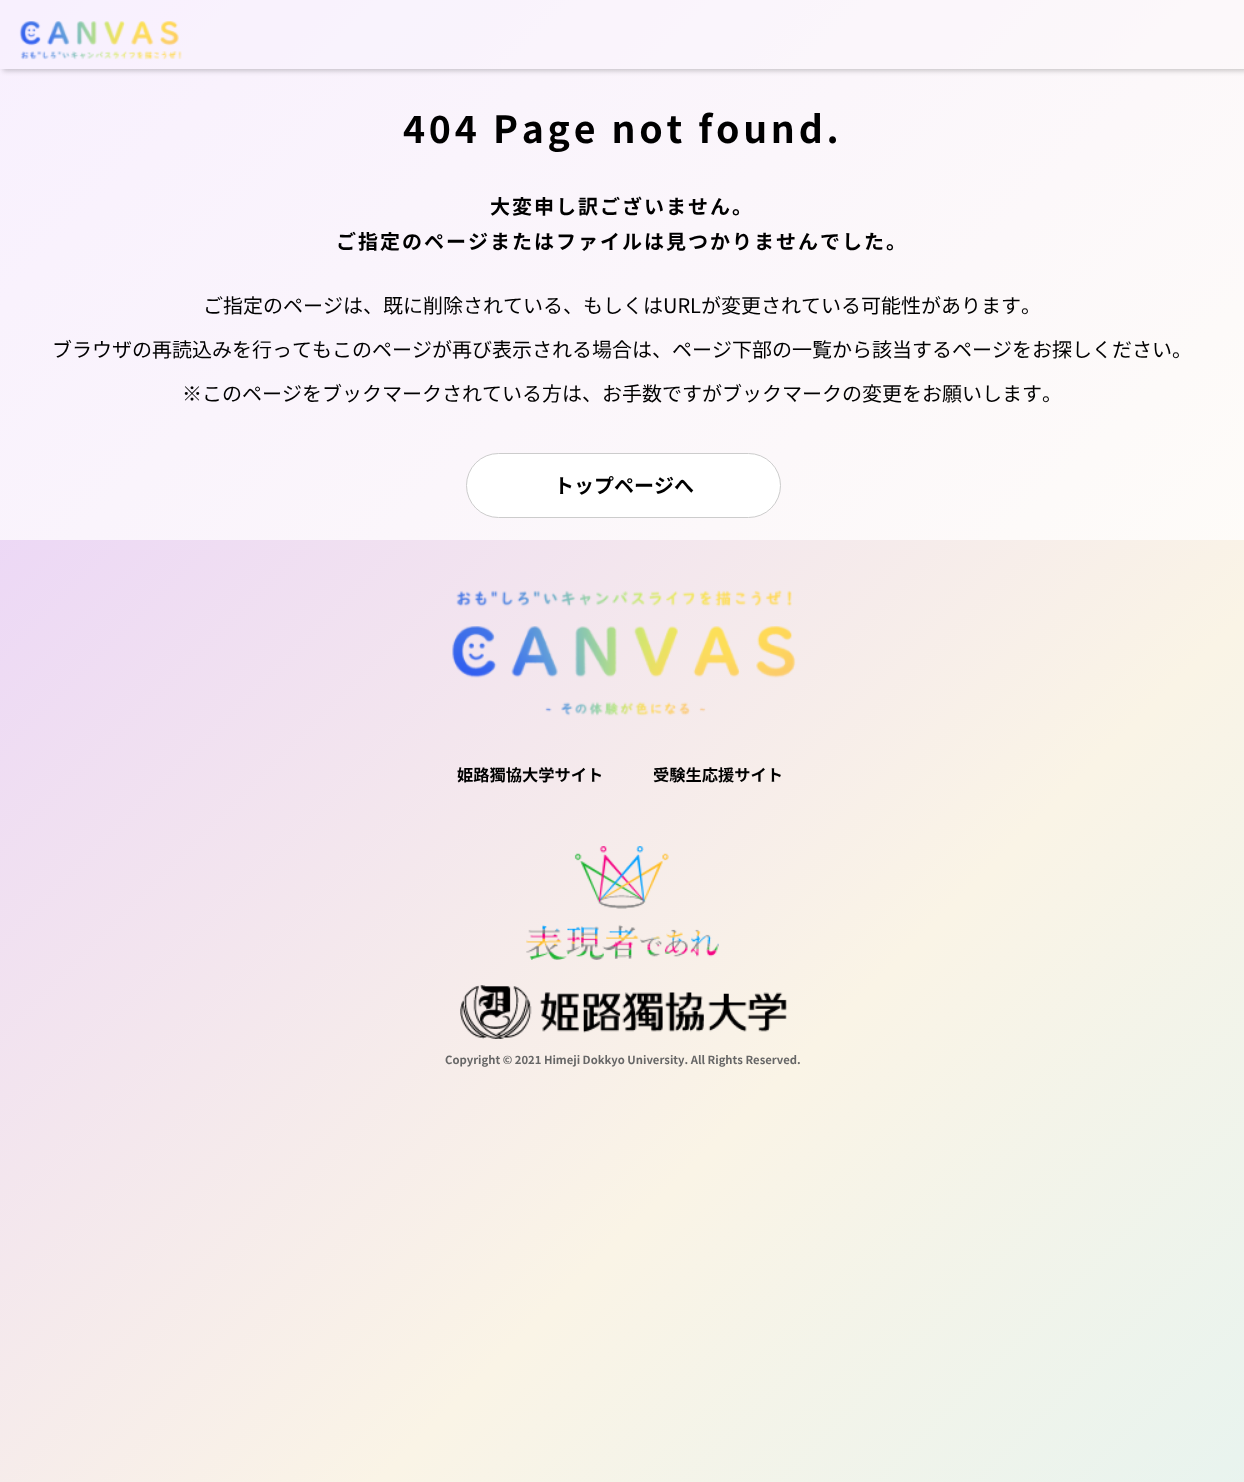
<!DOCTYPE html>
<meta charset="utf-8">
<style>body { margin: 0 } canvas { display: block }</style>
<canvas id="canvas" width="1244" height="1482"></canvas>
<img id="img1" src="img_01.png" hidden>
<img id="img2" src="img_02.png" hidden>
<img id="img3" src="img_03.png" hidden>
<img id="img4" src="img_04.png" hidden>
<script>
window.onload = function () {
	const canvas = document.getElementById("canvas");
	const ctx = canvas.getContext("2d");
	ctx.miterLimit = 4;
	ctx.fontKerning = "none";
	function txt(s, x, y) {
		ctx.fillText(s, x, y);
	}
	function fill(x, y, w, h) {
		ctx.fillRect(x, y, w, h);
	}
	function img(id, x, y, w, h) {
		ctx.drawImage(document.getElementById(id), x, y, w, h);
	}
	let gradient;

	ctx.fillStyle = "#FFFFFF";
	fill(0, 0, 1244, 1482);
	gradient = ctx.createLinearGradient(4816, 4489, 164, -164);
	gradient.addColorStop(0, "#D4F3F8");
	gradient.addColorStop(0.2, "#FAF4E6");
	gradient.addColorStop(0.4, "#E7CDFC");
	gradient.addColorStop(0.6, "#D4F3F8");
	gradient.addColorStop(0.8, "#FAF4E6");
	gradient.addColorStop(1, "#E7CDFC");
	ctx.fillStyle = gradient;
	fill(0, 0, 1244, 1482);
	gradient = ctx.createLinearGradient(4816, 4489, 164, -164);
	gradient.addColorStop(0, "#F2FBFD");
	gradient.addColorStop(0.2, "#FEFCF8");
	gradient.addColorStop(0.4, "#F8F0FE");
	gradient.addColorStop(0.6, "#F2FBFD");
	gradient.addColorStop(0.8, "#FEFCF8");
	gradient.addColorStop(1, "#F8F0FE");
	ctx.fillStyle = gradient;
	fill(0, 69, 1244, 471);
	ctx.save();
	ctx.beginPath();
	ctx.moveTo(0, 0);
	ctx.lineTo(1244, 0);
	ctx.lineTo(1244, 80);
	ctx.lineTo(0, 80);
	ctx.closePath();
	ctx.moveTo(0, 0);
	ctx.lineTo(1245, 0);
	ctx.lineTo(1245, 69);
	ctx.lineTo(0, 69);
	ctx.closePath();
	ctx.clip("evenodd");
	ctx.fillStyle = "rgba(0, 0, 0, 0.2)";
	ctx.filter = "blur(2.5px)";
	ctx.beginPath();
	ctx.rect(3, 3, 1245, 68);
	ctx.fill();
	ctx.filter = "none";
	ctx.restore();
	ctx.fillStyle = "rgba(255, 255, 255, 0.7)";
	fill(0, 0, 1244, 69);
	img("img1", 19, 21, 163, 39);
	ctx.fillStyle = "#FFFFFF";
	ctx.beginPath();
	ctx.roundRect(466.5, 453.5, 314, 64, 32);
	ctx.fill();
	ctx.strokeStyle = "#CCCCCC";
	ctx.stroke();
	img("img2", 452, 590, 344, 126);
	img("img3", 526, 846, 193, 114);
	img("img4", 460, 985, 327, 54);
	ctx.letterSpacing = "3.75px";
	ctx.font = "bold 37.5px Noto Sans JP";
	ctx.fillStyle = "#000000";
	txt("404 Page not found.", 403, 143);
	ctx.letterSpacing = "2px";
	ctx.font = "bold 20px Noto Sans JP";
	txt("大変申し訳ございません。", 490, 214);
	txt("ご指定のページまたはファイルは見つかりませんでした。", 336, 249);
	ctx.letterSpacing = "0px";
	ctx.font = "20px Noto Sans JP";
	txt("ご指定のページは、既に削除されている、もしくはURLが変更されている可能性があります", 203, 313);
	txt("。", 1021, 313);
	txt("ブラウザの再読込みを行ってもこのページが再び表示される場合は、ページ下部の一覧から該当するページをお探しください。", 52, 357);
	txt("※このページをブックマークされている方は、お手数ですがブックマークの変更をお願いします。", 182, 401);
	ctx.font = "bold 20px Noto Sans JP";
	txt("トップページへ", 554, 493);
	ctx.font = "bold 16.25px Noto Sans JP";
	txt("姫路獨協大学サイト", 457, 781);
	txt("受験生応援サイト", 653, 781);
	ctx.font = "bold 11.25px Noto Sans JP";
	ctx.fillStyle = "#666666";
	txt("Copyright © 2021 Himeji Dokkyo University. All Rights Reserved.", 445, 1064);
};
</script>
